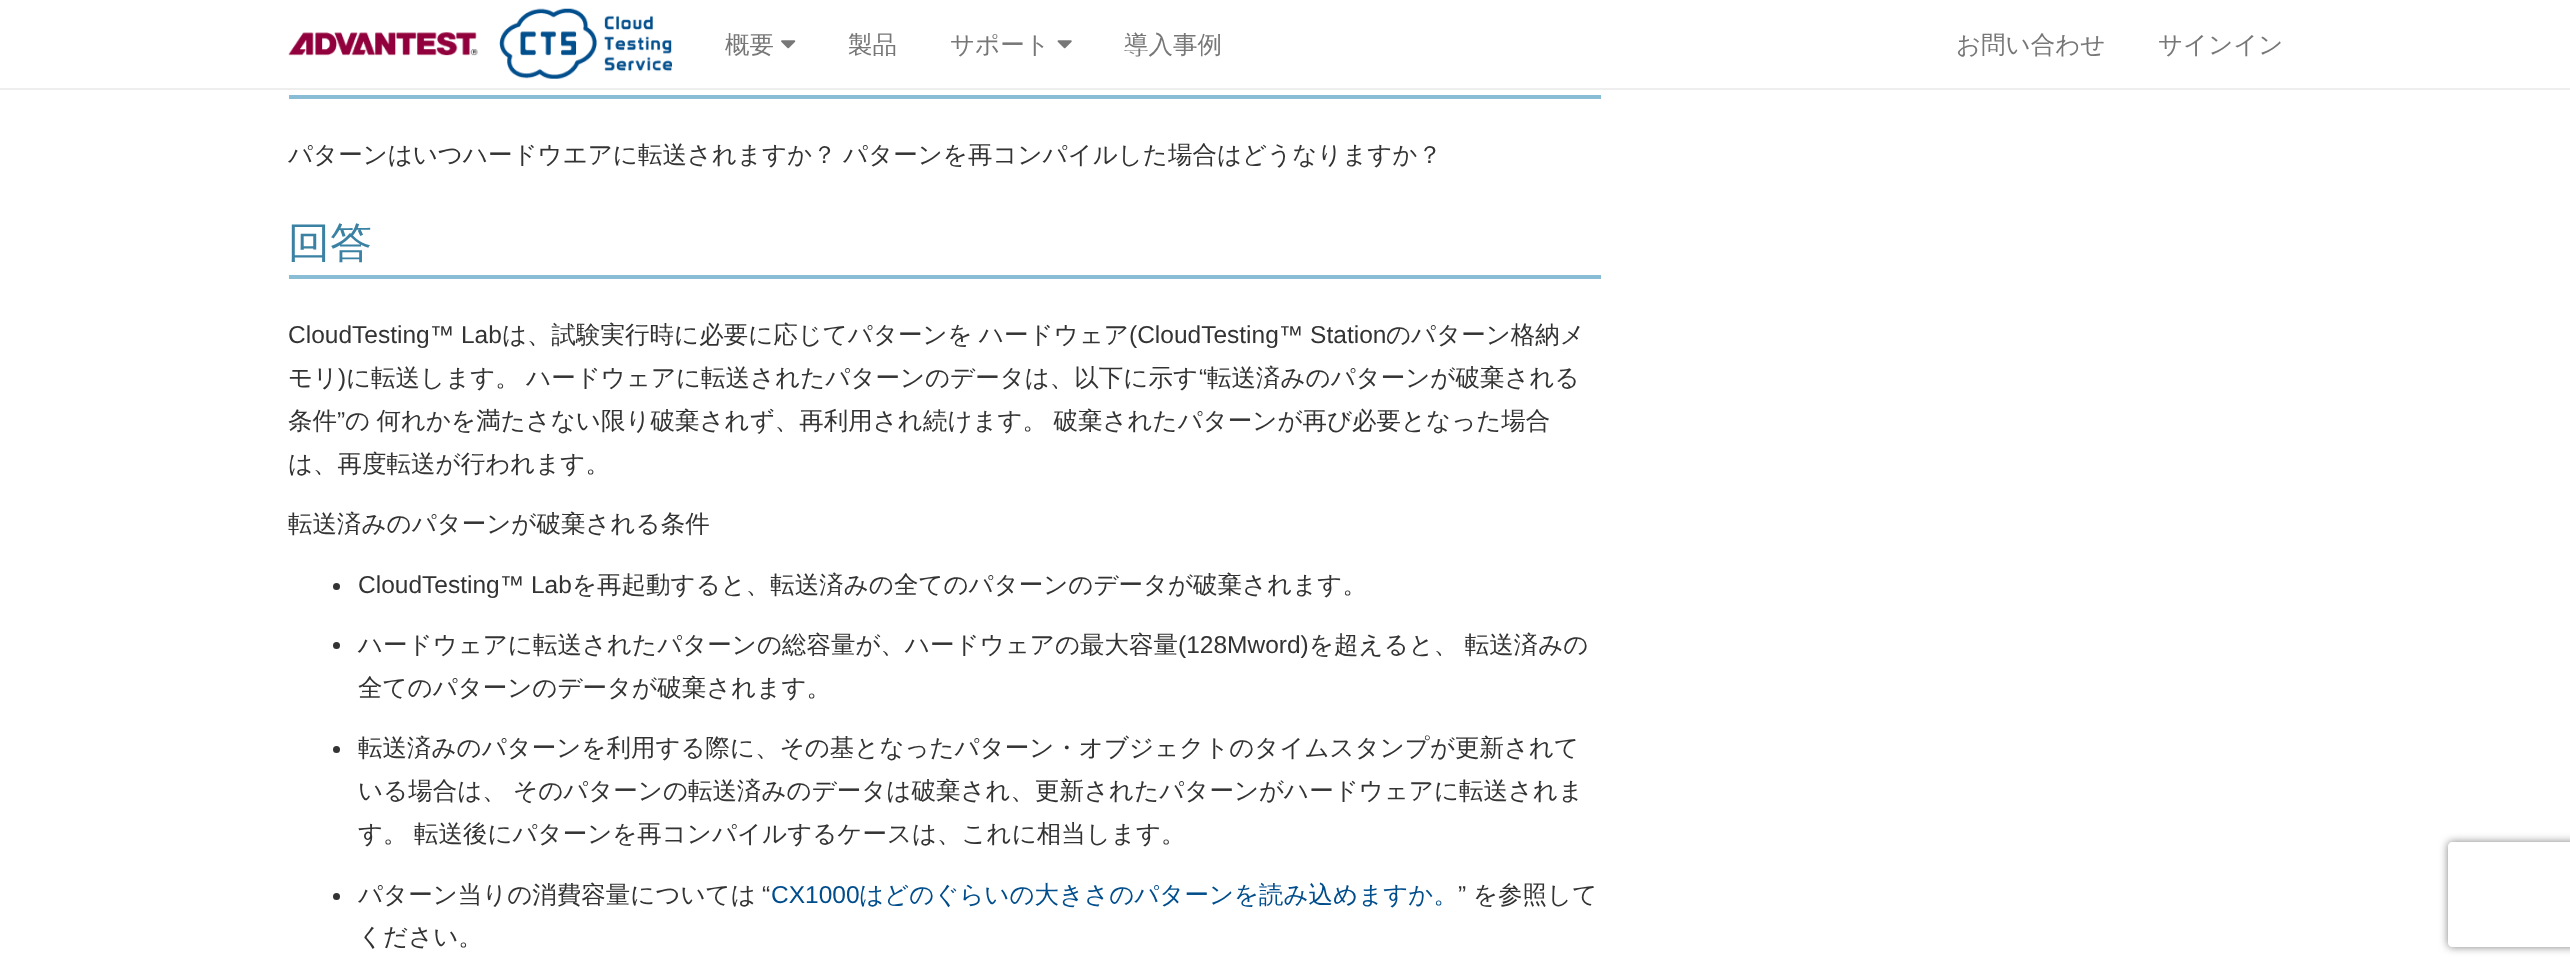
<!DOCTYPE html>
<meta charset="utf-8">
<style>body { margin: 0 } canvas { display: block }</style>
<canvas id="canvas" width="2570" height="971"></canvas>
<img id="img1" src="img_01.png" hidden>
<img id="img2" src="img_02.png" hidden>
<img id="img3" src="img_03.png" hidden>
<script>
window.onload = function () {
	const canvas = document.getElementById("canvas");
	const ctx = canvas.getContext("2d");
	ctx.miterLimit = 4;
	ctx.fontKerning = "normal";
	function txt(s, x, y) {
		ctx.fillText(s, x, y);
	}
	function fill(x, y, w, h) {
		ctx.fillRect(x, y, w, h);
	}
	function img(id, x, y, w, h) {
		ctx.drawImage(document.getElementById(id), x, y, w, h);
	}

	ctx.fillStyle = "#FFFFFF";
	fill(0, 0, 2570, 971);
	ctx.fillStyle = "#EEEEEE";
	fill(0, 88, 2570, 2);
	img("img1", 288, 8, 384, 71);
	img("img2", 781, 40, 15, 9);
	img("img3", 1057, 40, 15, 9);
	ctx.fillStyle = "#89BCD5";
	fill(289, 95, 1312, 4);
	fill(289, 275, 1312, 4);
	ctx.fillStyle = "#333333";
	ctx.beginPath();
	ctx.arc(336.5, 586.5, 3.5, 0, Math.PI * 2);
	ctx.fill();
	ctx.beginPath();
	ctx.arc(336.5, 645.5, 3.5, 0, Math.PI * 2);
	ctx.fill();
	ctx.beginPath();
	ctx.arc(336.5, 749.5, 3.5, 0, Math.PI * 2);
	ctx.fill();
	ctx.beginPath();
	ctx.arc(336.5, 896.5, 3.5, 0, Math.PI * 2);
	ctx.fill();
	ctx.save();
	ctx.beginPath();
	ctx.moveTo(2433, 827);
	ctx.lineTo(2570, 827);
	ctx.lineTo(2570, 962);
	ctx.lineTo(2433, 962);
	ctx.closePath();
	ctx.moveTo(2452, 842);
	ctx.lineTo(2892, 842);
	ctx.bezierCurveTo(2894, 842, 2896, 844, 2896, 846);
	ctx.lineTo(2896, 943);
	ctx.bezierCurveTo(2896, 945, 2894, 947, 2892, 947);
	ctx.lineTo(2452, 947);
	ctx.bezierCurveTo(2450, 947, 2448, 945, 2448, 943);
	ctx.lineTo(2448, 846);
	ctx.bezierCurveTo(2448, 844, 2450, 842, 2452, 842);
	ctx.closePath();
	ctx.clip("evenodd");
	ctx.fillStyle = "#808080";
	ctx.filter = "blur(4.5px)";
	ctx.beginPath();
	ctx.roundRect(2448, 842, 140, 105, 4);
	ctx.fill();
	ctx.filter = "none";
	ctx.restore();
	ctx.font = "500 24.5px WenQuanYi Zen Hei";
	ctx.fillStyle = "#777777";
	txt("概要", 725, 53);
	txt("製品", 848, 53);
	txt("サポート", 950, 53);
	txt("導入事例", 1124, 53);
	txt("お問い合わせ", 1956, 53);
	txt("サインイン", 2158, 53);
	ctx.wordSpacing = "-1px";
	ctx.fillStyle = "#333333";
	txt("パターンはいつハードウエアに転送されますか？ パターンを再コンパイルした場合はどうなりますか？", 288, 163);
	ctx.wordSpacing = "0px";
	ctx.font = "500 42px WenQuanYi Zen Hei";
	ctx.fillStyle = "#3A81A4";
	txt("回答", 288, 257);
	ctx.font = "24.5px Liberation Sans";
	ctx.fillStyle = "#333333";
	txt("CloudTesting™ Lab", 288, 343);
	ctx.font = "500 24.5px WenQuanYi Zen Hei";
	txt("は、試験実行時に必要に応じてパターンを", 502, 343);
	txt("ハードウェア", 979, 343);
	ctx.font = "24.5px Liberation Sans";
	txt("(CloudTesting™ Station", 1129, 343);
	ctx.font = "500 24.5px WenQuanYi Zen Hei";
	txt("のパターン格納メ", 1386, 343);
	txt("モリ", 288, 386);
	ctx.font = "24.5px Liberation Sans";
	txt(")", 338, 386);
	ctx.wordSpacing = "-1px";
	ctx.font = "500 24.5px WenQuanYi Zen Hei";
	txt("に転送します。 ハードウェアに転送されたパターンのデータは、以下に示す", 346, 386);
	ctx.wordSpacing = "0px";
	ctx.font = "24.5px Liberation Sans";
	txt("“", 1199, 386);
	ctx.font = "500 24.5px WenQuanYi Zen Hei";
	txt("転送済みのパターンが破棄される", 1207, 386);
	txt("条件", 288, 429);
	ctx.font = "24.5px Liberation Sans";
	txt("”", 337, 429);
	ctx.wordSpacing = "-1px";
	ctx.font = "500 24.5px WenQuanYi Zen Hei";
	txt("の 何れかを満たさない限り破棄されず、再利用され続けます。 破棄されたパターンが再び必要となった場合", 345, 429);
	ctx.wordSpacing = "0px";
	txt("は、再度転送が行われます。", 288, 472);
	txt("転送済みのパターンが破棄される条件", 288, 532);
	ctx.font = "24.5px Liberation Sans";
	txt("CloudTesting™ Lab", 358, 593);
	ctx.font = "500 24.5px WenQuanYi Zen Hei";
	txt("を再起動すると、転送済みの全てのパターンのデータが破棄されます。", 572, 593);
	txt("ハードウェアに転送されたパターンの総容量が、ハードウェアの最大容量", 358, 653);
	ctx.font = "24.5px Liberation Sans";
	txt("(128Mword)", 1178, 653);
	ctx.wordSpacing = "-1px";
	ctx.font = "500 24.5px WenQuanYi Zen Hei";
	txt("を超えると、 転送済みの", 1309, 653);
	ctx.wordSpacing = "0px";
	txt("全てのパターンのデータが破棄されます。", 358, 696);
	txt("転送済みのパターンを利用する際に、その基となったパターン・オブジェクトのタイムスタンプが更新されて", 358, 756);
	ctx.wordSpacing = "-1px";
	txt("いる場合は、 そのパターンの転送済みのデータは破棄され、更新されたパターンがハードウェアに転送されま", 358, 799);
	txt("す。 転送後にパターンを再コンパイルするケースは、これに相当します。", 358, 842);
	ctx.wordSpacing = "0px";
	txt("パターン当りの消費容量については", 358, 903);
	ctx.font = "24.5px Liberation Sans";
	txt("“", 762, 903);
	ctx.fillStyle = "#004D8C";
	txt("CX1000", 771, 903);
	ctx.font = "500 24.5px WenQuanYi Zen Hei";
	txt("はどのぐらいの大きさのパターンを読み込めますか。", 859, 903);
	ctx.font = "24.5px Liberation Sans";
	ctx.fillStyle = "#333333";
	txt("”", 1458, 903);
	ctx.font = "500 24.5px WenQuanYi Zen Hei";
	txt("を参照して", 1473, 903);
	txt("ください。", 358, 945);
};
</script>
